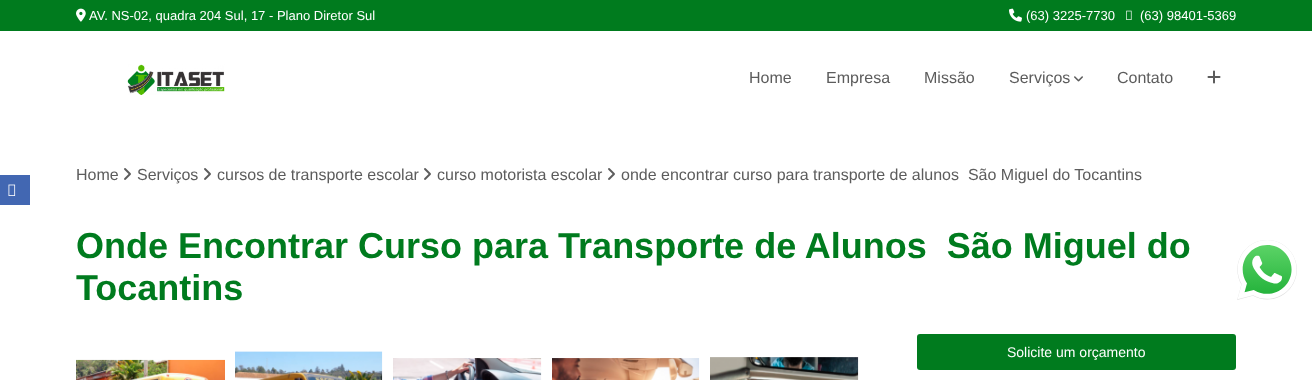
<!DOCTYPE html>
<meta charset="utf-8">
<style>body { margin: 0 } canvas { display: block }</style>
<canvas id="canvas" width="1312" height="380"></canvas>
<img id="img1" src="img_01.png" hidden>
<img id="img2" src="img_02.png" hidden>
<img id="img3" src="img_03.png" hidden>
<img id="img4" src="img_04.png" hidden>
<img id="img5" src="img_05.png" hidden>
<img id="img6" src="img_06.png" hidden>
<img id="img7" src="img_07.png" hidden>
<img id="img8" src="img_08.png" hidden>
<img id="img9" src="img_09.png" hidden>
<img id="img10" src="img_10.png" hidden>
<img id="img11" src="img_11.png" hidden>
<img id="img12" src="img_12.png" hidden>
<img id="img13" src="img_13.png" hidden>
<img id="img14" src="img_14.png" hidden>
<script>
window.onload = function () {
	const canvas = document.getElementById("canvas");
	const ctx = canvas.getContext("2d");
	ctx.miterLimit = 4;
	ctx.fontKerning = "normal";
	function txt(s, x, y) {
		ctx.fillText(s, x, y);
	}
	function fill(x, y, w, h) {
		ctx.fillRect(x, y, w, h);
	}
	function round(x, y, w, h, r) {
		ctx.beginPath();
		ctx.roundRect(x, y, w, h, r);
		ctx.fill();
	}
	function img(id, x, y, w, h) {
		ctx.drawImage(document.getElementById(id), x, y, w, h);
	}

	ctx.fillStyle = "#FFFFFF";
	fill(0, 0, 1312, 380);
	ctx.fillStyle = "#007B1E";
	fill(0, 0, 1312, 31);
	img("img1", 76, 8, 10, 14);
	img("img2", 1009, 8, 13, 14);
	img("img3", 1126, 10, 6, 10);
	img("img4", 127, 64, 98, 31);
	img("img5", 1074, 76, 9, 6);
	img("img6", 1207, 70, 14, 14);
	img("img7", 124, 168, 7, 12);
	img("img7", 204, 168, 7, 12);
	img("img7", 424, 168, 7, 12);
	img("img7", 608, 168, 7, 12);
	img("img8", 76, 359, 149, 21);
	img("img9", 235, 351, 148, 29);
	img("img10", 393, 358, 149, 22);
	img("img11", 552, 358, 148, 22);
	img("img12", 710, 357, 149, 23);
	round(917, 334, 319, 36, 3);
	ctx.fillStyle = "#4267B2";
	fill(0, 175, 30, 30);
	img("img13", 8, 184, 8, 12);
	img("img14", 1237, 240, 60, 60);
	ctx.font = "13px Liberation Sans";
	ctx.fillStyle = "#FFFFFF";
	txt("AV. NS-02, quadra 204 Sul, 17 - Plano Diretor Sul", 89, 20);
	txt("(63) 3225-7730", 1026, 20);
	txt("(63) 98401-5369", 1140, 20);
	ctx.font = "16px Liberation Sans";
	ctx.fillStyle = "#5C5C5C";
	txt("Home", 749, 83);
	txt("Empresa", 826, 83);
	txt("Missão", 924, 83);
	txt("Serviços", 1009, 83);
	txt("Contato", 1117, 83);
	txt("Home", 76, 180);
	txt("Serviços", 137, 180);
	txt("cursos de transporte escolar", 217, 180);
	txt("curso motorista escolar", 437, 180);
	txt("onde encontrar curso para transporte de alunos  São Miguel do Tocantins", 621, 180);
	ctx.font = "bold 36px Liberation Sans";
	ctx.fillStyle = "#007B1E";
	txt("Onde Encontrar Curso para Transporte de Alunos  São Miguel do", 76, 258);
	txt("Tocantins", 76, 300);
	ctx.font = "14px Liberation Sans";
	ctx.fillStyle = "#FFFFFF";
	txt("Solicite um orçamento", 1007, 357);
};
</script>
